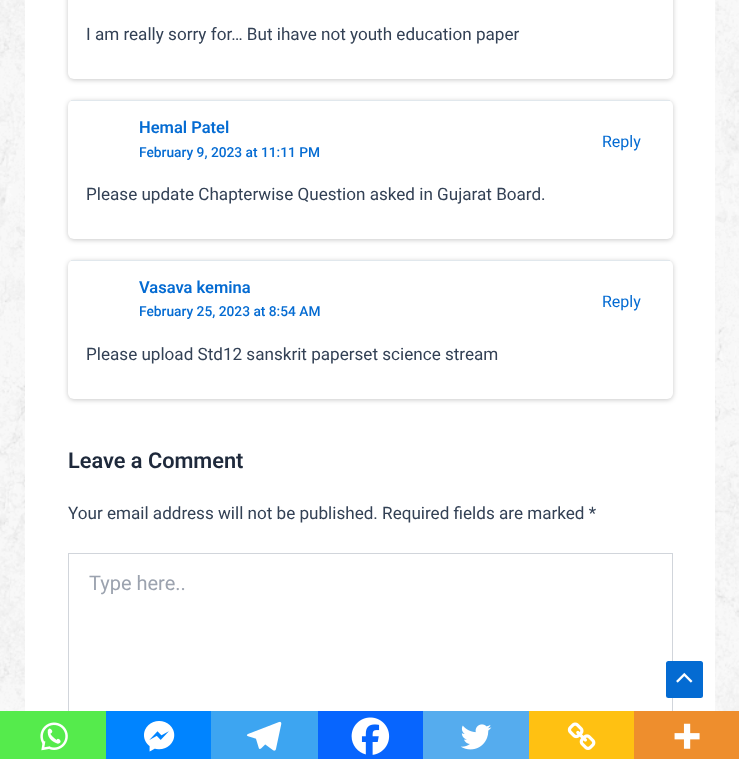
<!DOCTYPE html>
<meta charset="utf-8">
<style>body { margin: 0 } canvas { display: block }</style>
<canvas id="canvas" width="739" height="759"></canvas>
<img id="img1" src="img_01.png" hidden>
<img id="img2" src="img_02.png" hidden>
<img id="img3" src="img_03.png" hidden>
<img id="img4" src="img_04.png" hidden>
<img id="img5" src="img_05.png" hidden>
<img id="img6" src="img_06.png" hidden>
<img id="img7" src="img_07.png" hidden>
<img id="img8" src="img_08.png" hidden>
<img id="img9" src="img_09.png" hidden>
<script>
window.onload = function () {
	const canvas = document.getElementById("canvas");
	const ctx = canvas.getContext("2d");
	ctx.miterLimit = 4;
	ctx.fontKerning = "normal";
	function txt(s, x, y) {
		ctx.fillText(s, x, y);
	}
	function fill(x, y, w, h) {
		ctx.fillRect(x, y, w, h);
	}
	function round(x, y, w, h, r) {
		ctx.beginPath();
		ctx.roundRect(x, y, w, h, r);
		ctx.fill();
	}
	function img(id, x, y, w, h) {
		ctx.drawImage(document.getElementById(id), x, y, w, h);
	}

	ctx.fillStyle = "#FFFFFF";
	fill(0, 0, 739, 759);
	img("img1", 0, 0, 739, 711);
	fill(25, 0, 690, 711);
	ctx.fillStyle = "rgba(0, 0, 0, 0.21)";
	ctx.filter = "blur(2.5px)";
	ctx.beginPath();
	ctx.roundRect(68, -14, 605, 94, 6);
	ctx.fill();
	ctx.filter = "none";
	ctx.fillStyle = "#FFFFFF";
	round(68, -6, 605, 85, 6);
	ctx.fillStyle = "rgba(0, 0, 0, 0.21)";
	ctx.filter = "blur(2.5px)";
	ctx.beginPath();
	ctx.roundRect(68, 101, 605, 139, 6);
	ctx.fill();
	ctx.filter = "none";
	ctx.fillStyle = "#FFFFFF";
	round(68, 100, 605, 139, 6);
	ctx.fillStyle = "#E1E8ED";
	fill(71, 100, 599, 1);
	ctx.fillStyle = "rgba(0, 0, 0, 0.21)";
	ctx.filter = "blur(2.5px)";
	ctx.beginPath();
	ctx.roundRect(68, 261, 605, 139, 6);
	ctx.fill();
	ctx.filter = "none";
	ctx.fillStyle = "#FFFFFF";
	round(68, 260, 605, 139, 6);
	ctx.fillStyle = "#E1E8ED";
	fill(71, 260, 599, 1);
	ctx.strokeStyle = "#D1D5DB";
	ctx.strokeRect(68.5, 553.5, 604, 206);
	ctx.fillStyle = "#55EB4C";
	fill(0, 711, 106, 48);
	img("img2", 40, 722, 28, 29);
	ctx.fillStyle = "#0084FF";
	fill(106, 711, 105, 48);
	img("img3", 144, 721, 31, 31);
	ctx.fillStyle = "#3DA5F1";
	fill(211, 711, 107, 48);
	img("img4", 246, 721, 36, 30);
	ctx.fillStyle = "#0765FE";
	fill(318, 711, 105, 48);
	img("img5", 351, 717, 39, 38);
	ctx.fillStyle = "#55ACEE";
	fill(423, 711, 106, 48);
	img("img6", 460, 724, 32, 26);
	ctx.fillStyle = "#FFC112";
	fill(529, 711, 105, 48);
	img("img7", 567, 722, 29, 28);
	ctx.fillStyle = "#EE8E2D";
	fill(634, 711, 105, 48);
	img("img8", 674, 723, 26, 26);
	ctx.fillStyle = "#046BD2";
	round(666, 661, 37, 37, 2.5);
	img("img9", 676, 672, 17, 11);
	ctx.font = "17.1px Roboto";
	ctx.fillStyle = "#334155";
	txt("I am really sorry for… But ihave not youth education paper", 86, 40);
	ctx.font = "600 16.5px Roboto";
	ctx.fillStyle = "#046BD2";
	txt("Hemal Patel", 139, 133);
	ctx.font = "500 13.75px Roboto";
	txt("February 9, 2023 at 11:11 PM", 139, 157);
	ctx.font = "16px Roboto";
	txt("Reply", 602, 147);
	ctx.font = "17.1px Roboto";
	ctx.fillStyle = "#334155";
	txt("Please update Chapterwise Question asked in Gujarat Board.", 86, 200);
	ctx.font = "600 16.5px Roboto";
	ctx.fillStyle = "#046BD2";
	txt("Vasava kemina", 139, 293);
	ctx.font = "500 13.75px Roboto";
	txt("February 25, 2023 at 8:54 AM", 139, 316);
	ctx.font = "16px Roboto";
	txt("Reply", 602, 307);
	ctx.font = "17.1px Roboto";
	ctx.fillStyle = "#334155";
	txt("Please upload Std12 sanskrit paperset science stream", 86, 360);
	ctx.font = "600 21.75px Roboto";
	ctx.fillStyle = "#1E293B";
	txt("Leave a Comment", 68, 468);
	ctx.font = "17.1px Roboto";
	ctx.fillStyle = "#334155";
	txt("Your email address will not be published. Required fields are marked *", 68, 519);
	ctx.font = "20px Roboto";
	ctx.fillStyle = "#9CA3AF";
	txt("Type here..", 89, 590);
};
</script>
